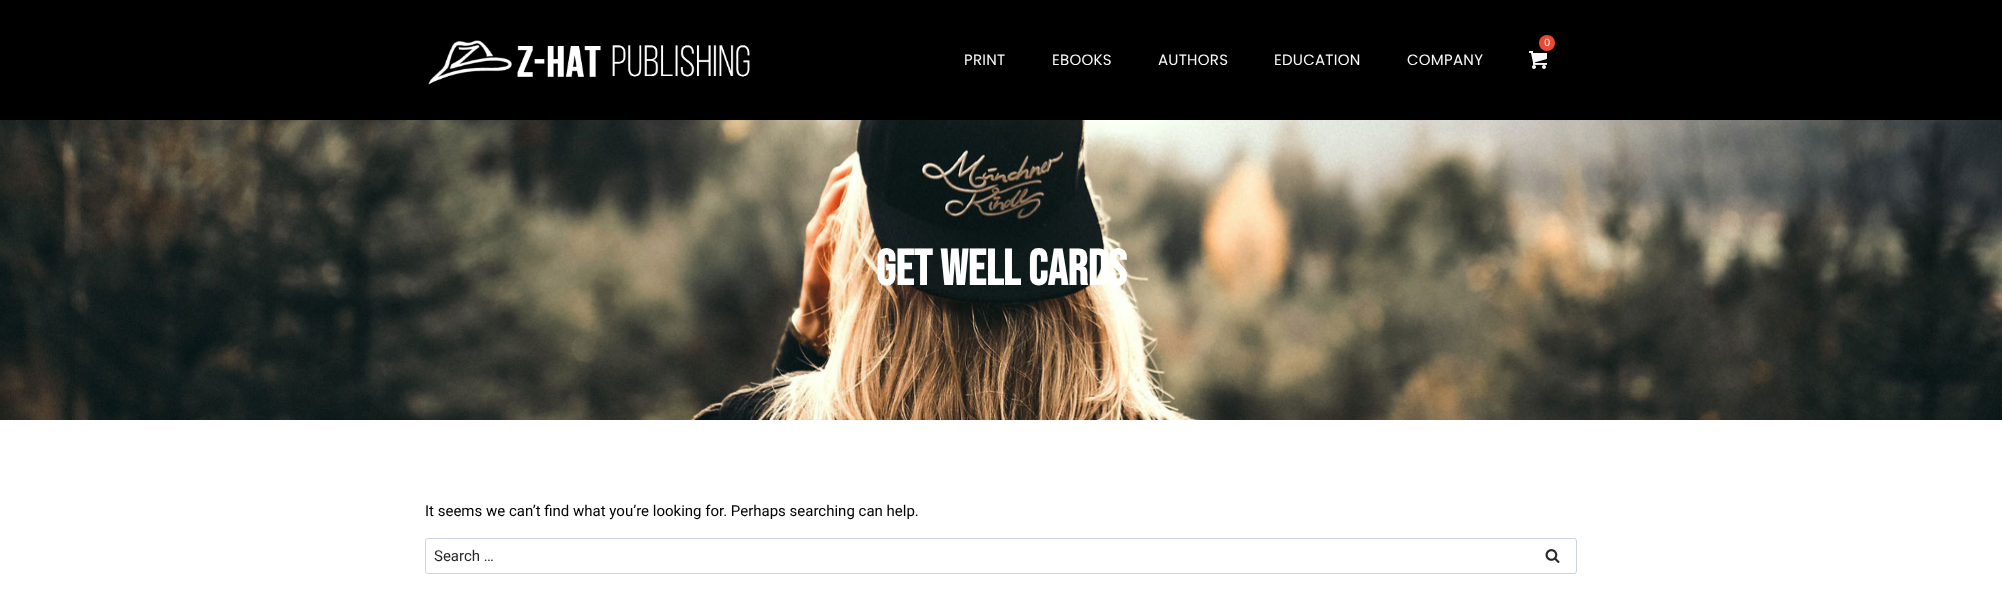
<!DOCTYPE html>
<meta charset="utf-8">
<style>body { margin: 0 } canvas { display: block }</style>
<canvas id="canvas" width="2002" height="606"></canvas>
<img id="img1" src="img_01.png" hidden>
<img id="img2" src="img_02.png" hidden>
<img id="img3" src="img_03.png" hidden>
<img id="img4" src="img_04.png" hidden>
<script>
window.onload = function () {
	const canvas = document.getElementById("canvas");
	const ctx = canvas.getContext("2d");
	ctx.miterLimit = 4;
	ctx.fontKerning = "normal";
	function txt(s, x, y) {
		ctx.fillText(s, x, y);
	}
	function fill(x, y, w, h) {
		ctx.fillRect(x, y, w, h);
	}
	function img(id, x, y, w, h) {
		ctx.drawImage(document.getElementById(id), x, y, w, h);
	}

	ctx.fillStyle = "#FFFFFF";
	fill(0, 0, 2002, 606);
	ctx.fillStyle = "#000000";
	fill(0, 0, 2002, 120);
	img("img1", 428, 40, 322, 45);
	ctx.fillStyle = "#E94B35";
	ctx.beginPath();
	ctx.arc(1547, 43, 8, 0, Math.PI * 2);
	ctx.fill();
	img("img2", 1529, 51, 18, 18);
	img("img3", 0, 120, 2002, 300);
	ctx.beginPath();
	ctx.roundRect(425.5, 538.5, 1151, 35, 2.5);
	ctx.strokeStyle = "#CBD5E0";
	ctx.stroke();
	img("img4", 1545, 549, 15, 14);
	ctx.letterSpacing = "0.25px";
	ctx.font = "10px Poppins";
	ctx.fillStyle = "#FFFFFF";
	txt("0", 1544, 46);
	ctx.font = "15px Poppins";
	ctx.fillStyle = "#F9F7F7";
	txt("PRINT", 964, 65);
	txt("EBOOKS", 1052, 65);
	txt("AUTHORS", 1158, 65);
	txt("EDUCATION", 1274, 65);
	txt("COMPANY", 1407, 65);
	ctx.letterSpacing = "0px";
	ctx.font = "bold 50px Bebas Neue";
	ctx.fillStyle = "#FFFFFF";
	txt("get well cards", 876, 285);
	ctx.font = "15px Roboto";
	ctx.fillStyle = "#010101";
	txt("It seems we can’t find what you’re looking for. Perhaps searching can help.", 425, 516);
	ctx.fillStyle = "#282828";
	txt("Search …", 434, 561);
};
</script>
